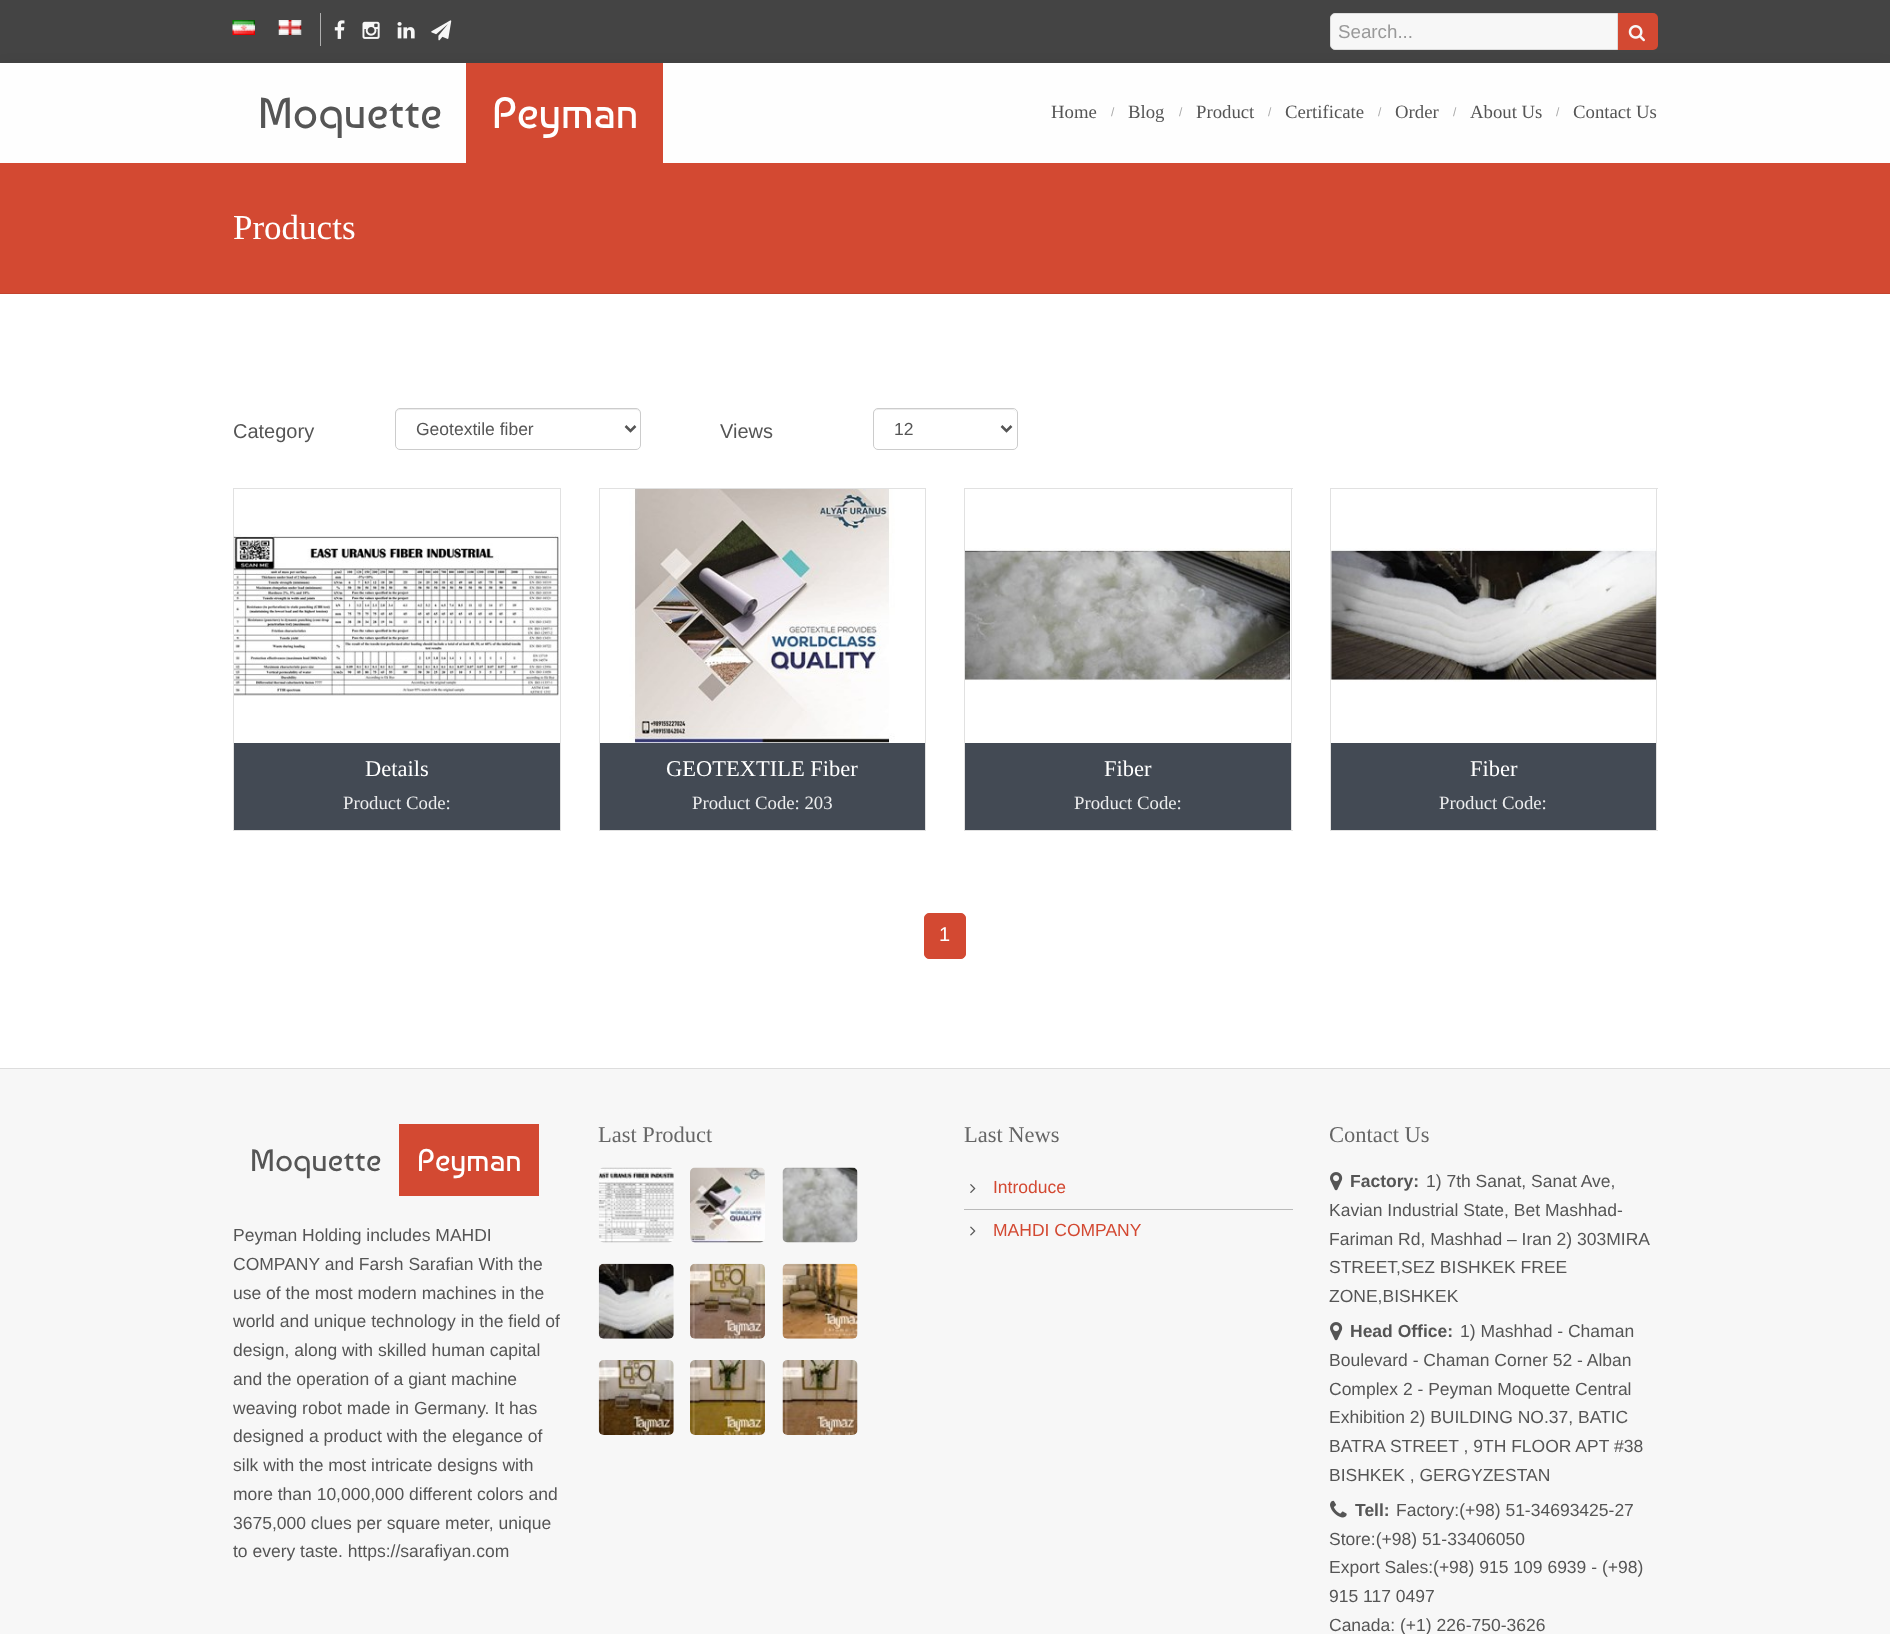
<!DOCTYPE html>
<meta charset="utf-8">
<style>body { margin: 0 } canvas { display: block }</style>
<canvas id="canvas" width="1890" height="1634"></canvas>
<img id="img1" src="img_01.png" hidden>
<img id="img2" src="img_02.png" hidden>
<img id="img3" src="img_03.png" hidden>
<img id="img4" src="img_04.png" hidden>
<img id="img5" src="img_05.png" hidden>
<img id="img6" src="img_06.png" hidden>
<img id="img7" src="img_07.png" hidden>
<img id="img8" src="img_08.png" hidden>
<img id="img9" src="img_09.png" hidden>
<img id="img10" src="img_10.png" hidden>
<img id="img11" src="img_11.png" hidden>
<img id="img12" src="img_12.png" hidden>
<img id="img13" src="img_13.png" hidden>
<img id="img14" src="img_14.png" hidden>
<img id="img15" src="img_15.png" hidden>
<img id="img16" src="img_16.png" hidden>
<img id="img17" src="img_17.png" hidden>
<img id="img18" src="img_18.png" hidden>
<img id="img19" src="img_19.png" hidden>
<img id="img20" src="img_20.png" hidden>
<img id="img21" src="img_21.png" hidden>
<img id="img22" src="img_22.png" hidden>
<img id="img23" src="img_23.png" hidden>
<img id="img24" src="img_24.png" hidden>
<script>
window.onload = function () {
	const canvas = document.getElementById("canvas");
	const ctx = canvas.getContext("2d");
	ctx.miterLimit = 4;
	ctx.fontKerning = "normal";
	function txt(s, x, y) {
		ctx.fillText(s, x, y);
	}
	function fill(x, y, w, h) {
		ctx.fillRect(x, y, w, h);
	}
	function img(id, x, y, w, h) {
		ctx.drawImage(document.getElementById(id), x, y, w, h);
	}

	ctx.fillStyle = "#FFFFFF";
	fill(0, 0, 1890, 1634);
	ctx.fillStyle = "#444444";
	fill(0, 0, 1890, 63);
	ctx.fillStyle = "rgba(0, 0, 0, 0.05)";
	ctx.filter = "blur(6px)";
	ctx.beginPath();
	ctx.rect(0, 63, 1890, 100);
	ctx.fill();
	ctx.filter = "none";
	ctx.fillStyle = "#AEAEAE";
	fill(320, 13, 1, 33);
	img("img1", 232, 20, 23, 15);
	img("img2", 278, 20, 24, 15);
	img("img3", 334, 20, 11, 19);
	img("img4", 362, 21, 18, 18);
	img("img5", 397, 22, 18, 17);
	img("img6", 431, 20, 21, 21);
	ctx.fillStyle = "#D34932";
	ctx.beginPath();
	ctx.roundRect(1616, 13, 42, 37, [0, 5, 5, 0]);
	ctx.fill();
	ctx.fillStyle = "#F7F7F7";
	ctx.beginPath();
	ctx.roundRect(1330.5, 13.5, 287, 36, [4.5, 0, 0, 4.5]);
	ctx.fill();
	ctx.strokeStyle = "#DDDDDD";
	ctx.stroke();
	img("img7", 1628, 25, 17, 17);
	ctx.fillStyle = "#FEFEFE";
	fill(0, 63, 1890, 100);
	ctx.fillStyle = "#D34932";
	fill(466, 63, 197, 100);
	fill(0, 163, 1890, 130);
	ctx.fillStyle = "#C3442E";
	fill(0, 293, 1890, 1);
	ctx.fillStyle = "#ECECEC";
	ctx.beginPath();
	ctx.moveTo(400, 410);
	ctx.lineTo(636, 410);
	ctx.bezierCurveTo(638, 410, 640, 412, 640, 414);
	ctx.lineTo(640, 413);
	ctx.bezierCurveTo(640, 411, 638, 409, 636, 409);
	ctx.lineTo(400, 409);
	ctx.bezierCurveTo(398, 409, 396, 411, 396, 413);
	ctx.lineTo(396, 414);
	ctx.bezierCurveTo(396, 412, 398, 410, 400, 410);
	ctx.closePath();
	ctx.fill();
	ctx.beginPath();
	ctx.roundRect(395.5, 408.5, 245, 41, 4.5);
	ctx.strokeStyle = "#CCCCCC";
	ctx.stroke();
	ctx.beginPath();
	ctx.moveTo(625.5, 426);
	ctx.lineTo(630.5, 431);
	ctx.lineTo(635.5, 426);
	ctx.strokeStyle = "#555555";
	ctx.lineWidth = 2.5;
	ctx.stroke();
	ctx.beginPath();
	ctx.moveTo(878, 410);
	ctx.lineTo(1012, 410);
	ctx.bezierCurveTo(1015, 410, 1016, 412, 1016, 414);
	ctx.lineTo(1016, 413);
	ctx.bezierCurveTo(1016, 411, 1014, 409, 1012, 409);
	ctx.lineTo(878, 409);
	ctx.bezierCurveTo(876, 409, 874, 411, 874, 413);
	ctx.lineTo(874, 414);
	ctx.bezierCurveTo(874, 412, 875, 410, 878, 410);
	ctx.closePath();
	ctx.fill();
	ctx.beginPath();
	ctx.roundRect(873.5, 408.5, 144, 41, 4.5);
	ctx.strokeStyle = "#CCCCCC";
	ctx.lineWidth = 1;
	ctx.stroke();
	ctx.beginPath();
	ctx.moveTo(1001.5, 426);
	ctx.lineTo(1006.5, 431);
	ctx.lineTo(1011.5, 426);
	ctx.strokeStyle = "#555555";
	ctx.lineWidth = 2.5;
	ctx.stroke();
	ctx.fillStyle = "#E1E1E1";
	fill(233, 488, 328, 1);
	fill(560, 488, 1, 255);
	fill(233, 488, 1, 255);
	img("img8", 233, 534, 326, 162);
	fill(560, 743, 1, 88);
	fill(233, 830, 328, 1);
	fill(233, 743, 1, 88);
	ctx.fillStyle = "#434A54";
	fill(234, 743, 326, 87);
	ctx.fillStyle = "#E1E1E1";
	fill(599, 488, 327, 1);
	fill(925, 488, 1, 255);
	fill(599, 488, 1, 255);
	img("img9", 629, 489, 266, 254);
	fill(925, 743, 1, 88);
	fill(599, 830, 327, 1);
	fill(599, 743, 1, 88);
	ctx.fillStyle = "#434A54";
	fill(600, 743, 325, 87);
	ctx.fillStyle = "#E1E1E1";
	fill(964, 488, 329, 1);
	fill(1291, 488, 1, 255);
	fill(964, 488, 1, 255);
	img("img10", 965, 548, 325, 133);
	fill(1291, 743, 1, 88);
	fill(964, 830, 329, 1);
	fill(964, 743, 1, 88);
	ctx.fillStyle = "#434A54";
	fill(965, 743, 326, 87);
	ctx.fillStyle = "#E1E1E1";
	fill(1330, 488, 328, 1);
	fill(1656, 488, 1, 255);
	fill(1330, 488, 1, 255);
	img("img11", 1331, 548, 326, 134);
	fill(1656, 743, 1, 88);
	fill(1330, 830, 328, 1);
	fill(1330, 743, 1, 88);
	ctx.fillStyle = "#434A54";
	fill(1331, 743, 325, 87);
	ctx.fillStyle = "#D34932";
	ctx.beginPath();
	ctx.roundRect(924.5, 913.5, 41, 45, 4.5);
	ctx.fill();
	ctx.strokeStyle = "#D34932";
	ctx.lineWidth = 1;
	ctx.stroke();
	ctx.fillStyle = "#F7F7F7";
	fill(0, 1069, 1890, 565);
	ctx.fillStyle = "#DDDDDD";
	fill(0, 1068, 1890, 1);
	ctx.fillStyle = "#D34932";
	fill(399, 1124, 140, 72);
	img("img12", 598, 1167, 76, 76);
	img("img13", 690, 1167, 75, 76);
	img("img14", 782, 1167, 76, 76);
	img("img15", 598, 1263, 76, 76);
	img("img16", 690, 1263, 75, 76);
	img("img17", 782, 1263, 76, 76);
	img("img18", 598, 1360, 76, 75);
	img("img19", 690, 1360, 75, 75);
	img("img20", 782, 1360, 76, 75);
	img("img21", 970, 1184, 6, 9);
	ctx.fillStyle = "#BABABA";
	fill(964, 1209, 329, 1);
	img("img22", 970, 1226, 6, 10);
	img("img23", 1330, 1172, 13, 19);
	img("img23", 1330, 1322, 13, 19);
	img("img24", 1330, 1500, 17, 18);
	ctx.font = "18.75px Liberation Sans";
	ctx.fillStyle = "#999999";
	txt("Search...", 1338, 38);
	ctx.font = "43.75px Baumans";
	ctx.fillStyle = "#555555";
	txt("Moquette", 258, 128);
	ctx.fillStyle = "#FFFFFF";
	txt("Peyman", 492, 128);
	ctx.font = "18.75px Liberation Serif";
	ctx.fillStyle = "#555555";
	txt("Home", 1051, 118);
	ctx.font = "12px Liberation Sans";
	ctx.fillStyle = "#AAAAAA";
	txt("/", 1111, 116);
	ctx.font = "18.75px Liberation Serif";
	ctx.fillStyle = "#555555";
	txt("Blog", 1128, 118);
	ctx.font = "12px Liberation Sans";
	ctx.fillStyle = "#AAAAAA";
	txt("/", 1179, 116);
	ctx.font = "18.75px Liberation Serif";
	ctx.fillStyle = "#555555";
	txt("Product", 1196, 118);
	ctx.font = "12px Liberation Sans";
	ctx.fillStyle = "#AAAAAA";
	txt("/", 1268, 116);
	ctx.font = "18.75px Liberation Serif";
	ctx.fillStyle = "#555555";
	txt("Certificate", 1285, 118);
	ctx.font = "12px Liberation Sans";
	ctx.fillStyle = "#AAAAAA";
	txt("/", 1378, 116);
	ctx.font = "18.75px Liberation Serif";
	ctx.fillStyle = "#555555";
	txt("Order", 1395, 118);
	ctx.font = "12px Liberation Sans";
	ctx.fillStyle = "#AAAAAA";
	txt("/", 1453, 116);
	ctx.font = "18.75px Liberation Serif";
	ctx.fillStyle = "#555555";
	txt("About Us", 1470, 118);
	ctx.font = "12px Liberation Sans";
	ctx.fillStyle = "#AAAAAA";
	txt("/", 1556, 116);
	ctx.font = "18.75px Liberation Serif";
	ctx.fillStyle = "#555555";
	txt("Contact Us", 1573, 118);
	ctx.font = "35px Liberation Serif";
	ctx.fillStyle = "#FFFFFF";
	txt("Products", 233, 239);
	ctx.font = "20px Liberation Sans";
	ctx.fillStyle = "#555555";
	txt("Category", 233, 438);
	ctx.font = "17.5px Liberation Sans";
	txt("Geotextile fiber", 416, 435);
	ctx.font = "20px Liberation Sans";
	txt("Views", 720, 438);
	ctx.font = "17.5px Liberation Sans";
	txt("12", 894, 435);
	ctx.font = "22.5px Liberation Serif";
	ctx.fillStyle = "#FFFFFF";
	txt("Details", 365, 776);
	ctx.font = "18.75px Liberation Serif";
	ctx.fillStyle = "#ECEDEE";
	txt("Product Code:", 343, 809);
	ctx.font = "22.5px Liberation Serif";
	ctx.fillStyle = "#FFFFFF";
	txt("GEOTEXTILE Fiber", 666, 776);
	ctx.font = "18.75px Liberation Serif";
	ctx.fillStyle = "#ECEDEE";
	txt("Product Code: 203", 692, 809);
	ctx.font = "22.5px Liberation Serif";
	ctx.fillStyle = "#FFFFFF";
	txt("Fiber", 1104, 776);
	ctx.font = "18.75px Liberation Serif";
	ctx.fillStyle = "#ECEDEE";
	txt("Product Code:", 1074, 809);
	ctx.font = "22.5px Liberation Serif";
	ctx.fillStyle = "#FFFFFF";
	txt("Fiber", 1470, 776);
	ctx.font = "18.75px Liberation Serif";
	ctx.fillStyle = "#ECEDEE";
	txt("Product Code:", 1439, 809);
	ctx.font = "20px Liberation Sans";
	ctx.fillStyle = "#FFFFFF";
	txt("1", 939, 941);
	ctx.font = "31.25px Baumans";
	ctx.fillStyle = "#555555";
	txt("Moquette", 250, 1171);
	ctx.fillStyle = "#FFFFFF";
	txt("Peyman", 417, 1171);
	ctx.font = "17.5px Liberation Sans";
	ctx.fillStyle = "#555555";
	txt("Peyman Holding includes MAHDI", 233, 1241);
	txt("COMPANY and Farsh Sarafian With the", 233, 1270);
	txt("use of the most modern machines in the", 233, 1299);
	txt("world and unique technology in the field of", 233, 1327);
	txt("design, along with skilled human capital", 233, 1356);
	txt("and the operation of a giant machine", 233, 1385);
	txt("weaving robot made in Germany. It has", 233, 1414);
	txt("designed a product with the elegance of", 233, 1442);
	txt("silk with the most intricate designs with", 233, 1471);
	txt("more than 10,000,000 different colors and", 233, 1500);
	txt("3675,000 clues per square meter, unique", 233, 1529);
	txt("to every taste. https://sarafiyan.com", 233, 1557);
	ctx.font = "22.5px Liberation Serif";
	ctx.fillStyle = "#666666";
	txt("Last Product", 598, 1142);
	txt("Last News", 964, 1142);
	ctx.font = "17.5px Liberation Sans";
	ctx.fillStyle = "#D34932";
	txt("Introduce", 993, 1193);
	txt("MAHDI COMPANY", 993, 1236);
	ctx.font = "22.5px Liberation Serif";
	ctx.fillStyle = "#666666";
	txt("Contact Us", 1329, 1142);
	ctx.font = "bold 17.5px Liberation Sans";
	ctx.fillStyle = "#555555";
	txt("Factory:", 1350, 1187);
	ctx.font = "17.5px Liberation Sans";
	txt("1) 7th Sanat, Sanat Ave,", 1426, 1187);
	txt("Kavian Industrial State, Bet Mashhad-", 1329, 1216);
	txt("Fariman Rd, Mashhad – Iran 2) 303MIRA", 1329, 1245);
	txt("STREET,SEZ BISHKEK FREE", 1329, 1273);
	txt("ZONE,BISHKEK", 1329, 1302);
	ctx.font = "bold 17.5px Liberation Sans";
	txt("Head Office:", 1350, 1337);
	ctx.font = "17.5px Liberation Sans";
	txt("1) Mashhad - Chaman", 1460, 1337);
	txt("Boulevard - Chaman Corner 52 - Alban", 1329, 1366);
	txt("Complex 2 - Peyman Moquette Central", 1329, 1395);
	txt("Exhibition 2) BUILDING NO.37, BATIC", 1329, 1423);
	txt("BATRA STREET , 9TH FLOOR APT #38", 1329, 1452);
	txt("BISHKEK , GERGYZESTAN", 1329, 1481);
	txt("Factory:(+98) 51-34693425-27", 1396, 1516);
	txt("Store:(+98) 51-33406050", 1329, 1545);
	txt("Export Sales:(+98) 915 109 6939 - (+98)", 1329, 1573);
	txt("915 117 0497", 1329, 1602);
	txt("Canada: (+1) 226-750-3626", 1329, 1631);
	ctx.font = "bold 17.5px Liberation Sans";
	txt("Tell:", 1355, 1516);
};
</script>
